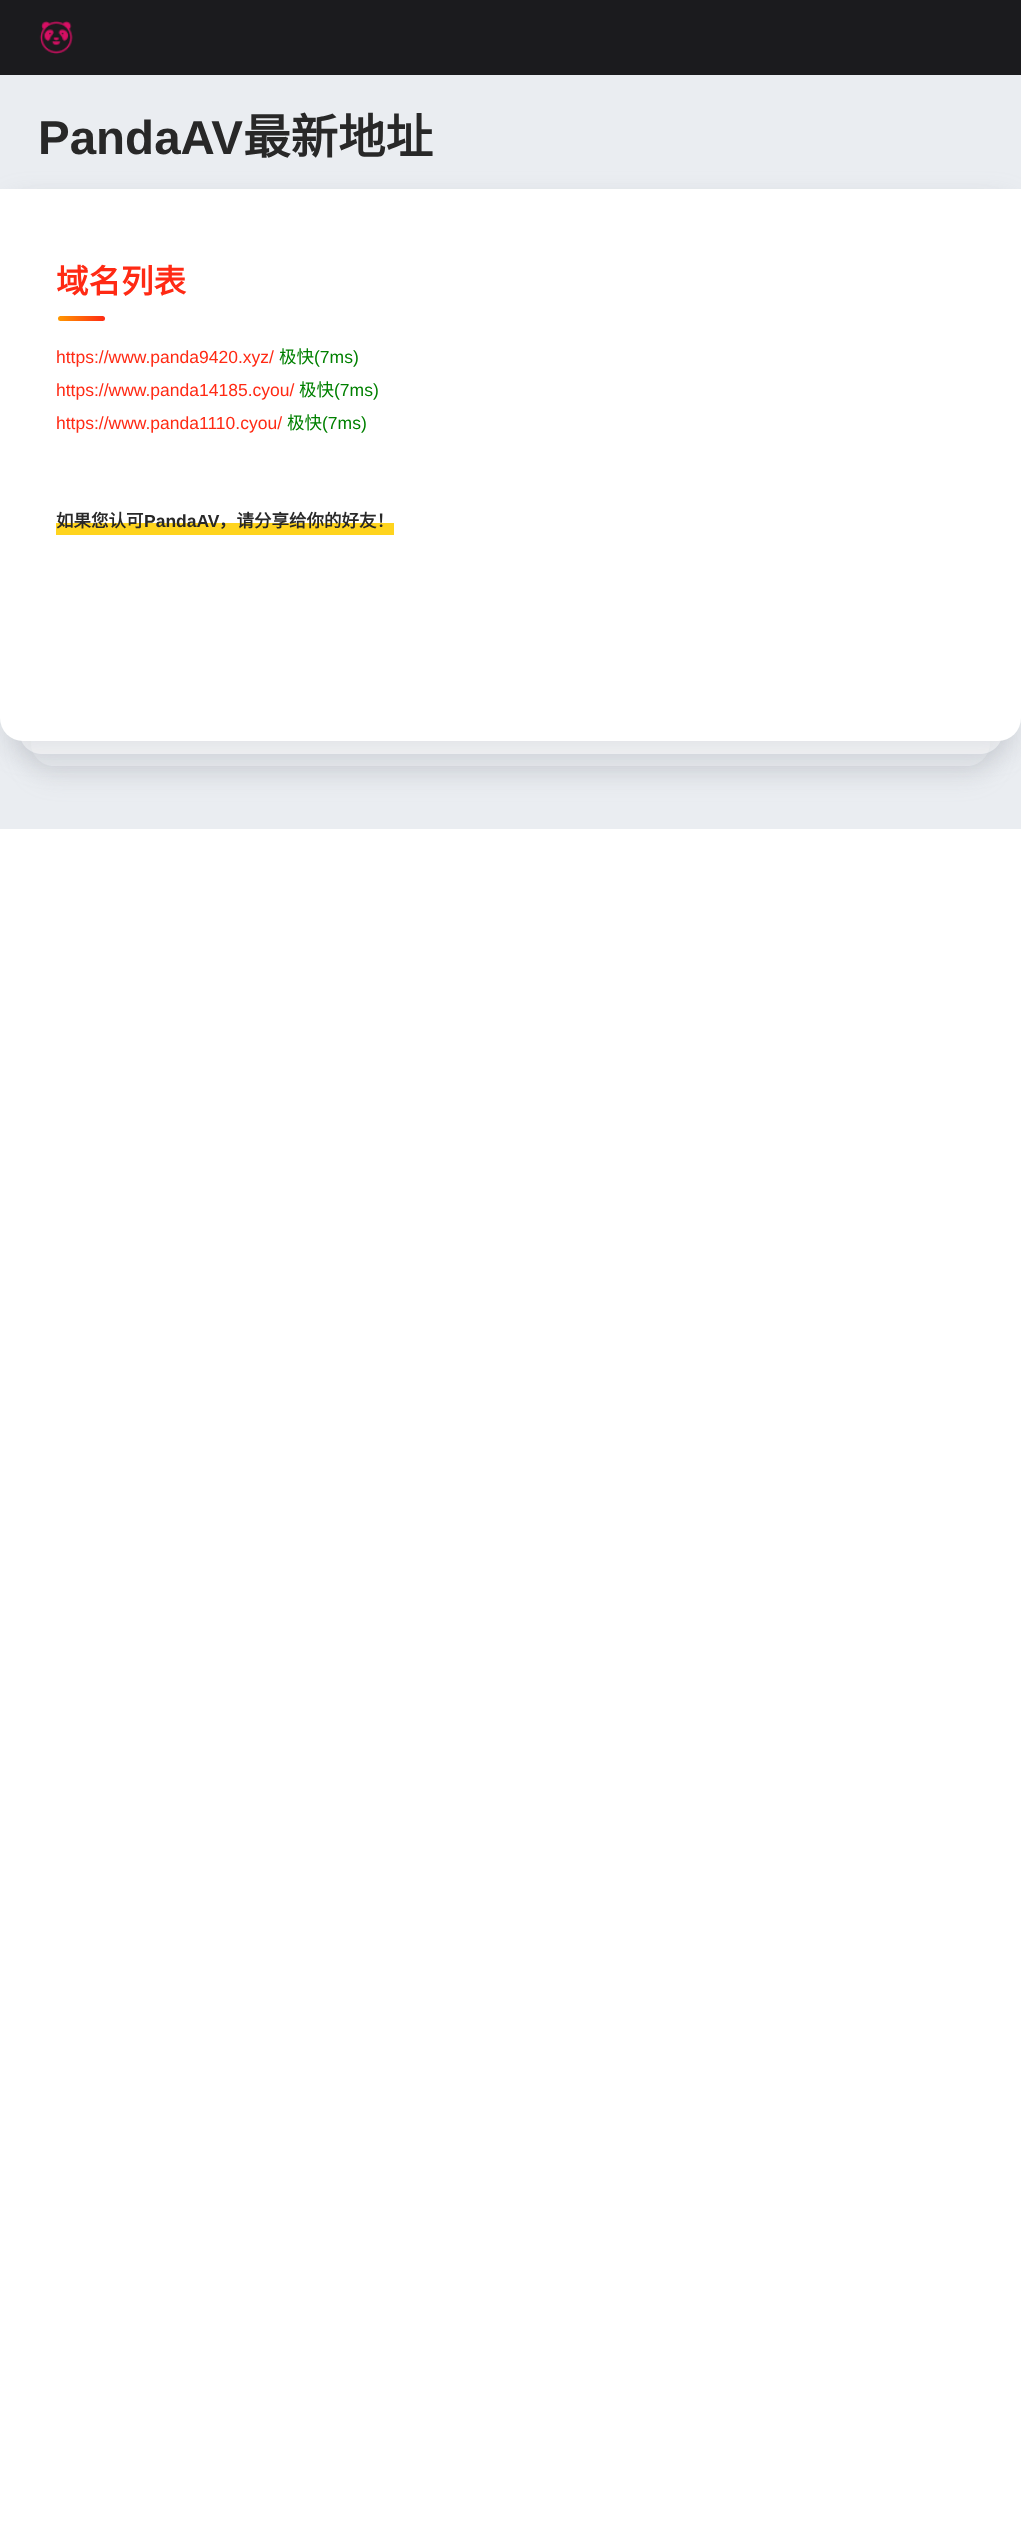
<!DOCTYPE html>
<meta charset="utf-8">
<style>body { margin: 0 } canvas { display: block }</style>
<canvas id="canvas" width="1021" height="2523"></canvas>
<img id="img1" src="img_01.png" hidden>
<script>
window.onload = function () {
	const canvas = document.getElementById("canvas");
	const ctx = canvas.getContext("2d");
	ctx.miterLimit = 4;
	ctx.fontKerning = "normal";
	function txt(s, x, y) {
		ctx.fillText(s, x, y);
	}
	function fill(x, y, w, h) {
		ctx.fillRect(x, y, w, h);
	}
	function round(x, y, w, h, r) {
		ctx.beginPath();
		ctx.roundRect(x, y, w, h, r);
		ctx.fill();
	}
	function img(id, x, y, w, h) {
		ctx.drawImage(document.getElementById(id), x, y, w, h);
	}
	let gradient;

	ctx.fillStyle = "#FFFFFF";
	fill(0, 0, 1021, 2523);
	ctx.fillStyle = "#1B1B1E";
	fill(0, 0, 1021, 75);
	img("img1", 39, 21, 34, 33);
	ctx.fillStyle = "#EAEDF1";
	fill(0, 718, 1021, 111);
	ctx.save();
	ctx.beginPath();
	ctx.moveTo(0, 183);
	ctx.lineTo(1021, 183);
	ctx.lineTo(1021, 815);
	ctx.lineTo(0, 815);
	ctx.closePath();
	ctx.moveTo(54, 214);
	ctx.lineTo(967, 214);
	ctx.bezierCurveTo(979.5, 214, 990, 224.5, 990, 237);
	ctx.lineTo(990, 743);
	ctx.bezierCurveTo(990, 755.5, 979.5, 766, 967, 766);
	ctx.lineTo(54, 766);
	ctx.bezierCurveTo(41.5, 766, 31, 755.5, 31, 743);
	ctx.lineTo(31, 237);
	ctx.bezierCurveTo(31, 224.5, 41.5, 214, 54, 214);
	ctx.closePath();
	ctx.clip("evenodd");
	ctx.fillStyle = "rgba(149, 157, 165, 0.22)";
	ctx.filter = "blur(13px)";
	ctx.beginPath();
	ctx.roundRect(31, 223, 959, 552, 23);
	ctx.fill();
	ctx.filter = "none";
	ctx.restore();
	fill(0, 75, 1021, 114);
	ctx.save();
	ctx.beginPath();
	ctx.moveTo(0, 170);
	ctx.lineTo(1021, 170);
	ctx.lineTo(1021, 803);
	ctx.lineTo(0, 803);
	ctx.closePath();
	ctx.moveTo(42, 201);
	ctx.lineTo(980, 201);
	ctx.bezierCurveTo(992.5, 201, 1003, 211.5, 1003, 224);
	ctx.lineTo(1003, 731);
	ctx.bezierCurveTo(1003, 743.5, 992.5, 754, 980, 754);
	ctx.lineTo(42, 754);
	ctx.bezierCurveTo(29.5, 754, 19, 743.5, 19, 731);
	ctx.lineTo(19, 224);
	ctx.bezierCurveTo(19, 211.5, 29.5, 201, 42, 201);
	ctx.closePath();
	ctx.clip("evenodd");
	ctx.fillStyle = "rgba(149, 157, 165, 0.22)";
	ctx.filter = "blur(13px)";
	ctx.beginPath();
	ctx.roundRect(19, 210, 984, 553, 23);
	ctx.fill();
	ctx.filter = "none";
	ctx.restore();
	ctx.fillStyle = "rgba(255, 255, 255, 0.5)";
	round(19, 201, 984, 553, 23);
	ctx.fillStyle = "rgba(149, 157, 165, 0.22)";
	ctx.filter = "blur(13px)";
	ctx.beginPath();
	ctx.roundRect(0, 198, 1021, 552, 23);
	ctx.fill();
	ctx.filter = "none";
	ctx.fillStyle = "#FFFFFF";
	ctx.beginPath();
	ctx.roundRect(0, 189, 1021, 552, [0, 0, 23, 23]);
	ctx.fill();
	gradient = ctx.createLinearGradient(58, 319, 105, 319);
	gradient.addColorStop(0, "#FF9800");
	gradient.addColorStop(1, "#FF2A14");
	ctx.fillStyle = gradient;
	round(58, 316, 47, 5, 2.5);
	ctx.fillStyle = "#FFD41E";
	fill(56, 523, 338, 12);
	ctx.font = "bold 47.5px Liberation Sans";
	ctx.fillStyle = "#282828";
	txt("PandaAV", 38, 154);
	ctx.font = "bold 47.5px Noto Sans CJK SC";
	txt("最新地址", 243, 154);
	ctx.font = "bold 32.5px Noto Sans CJK SC";
	ctx.fillStyle = "#FF2A14";
	txt("域名列表", 56, 293);
	ctx.font = "17.5px Liberation Sans";
	txt("https://www.panda9420.xyz/", 56, 363);
	ctx.font = "17.5px Noto Sans CJK SC";
	ctx.fillStyle = "#008000";
	txt("极快", 279, 363);
	ctx.font = "17.5px Liberation Sans";
	txt("(7ms)", 314, 363);
	ctx.fillStyle = "#FF2A14";
	txt("https://www.panda14185.cyou/", 56, 396);
	ctx.font = "17.5px Noto Sans CJK SC";
	ctx.fillStyle = "#008000";
	txt("极快", 299, 396);
	ctx.font = "17.5px Liberation Sans";
	txt("(7ms)", 334, 396);
	ctx.fillStyle = "#FF2A14";
	txt("https://www.panda1110.cyou/", 56, 429);
	ctx.font = "17.5px Noto Sans CJK SC";
	ctx.fillStyle = "#008000";
	txt("极快", 287, 429);
	ctx.font = "17.5px Liberation Sans";
	txt("(7ms)", 322, 429);
	ctx.font = "bold 17.5px Noto Sans CJK SC";
	ctx.fillStyle = "#282828";
	txt("如果您认可", 56, 527);
	ctx.font = "bold 17.5px Liberation Sans";
	txt("PandaAV", 144, 527);
	ctx.font = "bold 17.5px Noto Sans CJK SC";
	txt("，请分享给你的好友！", 219, 527);
};
</script>
